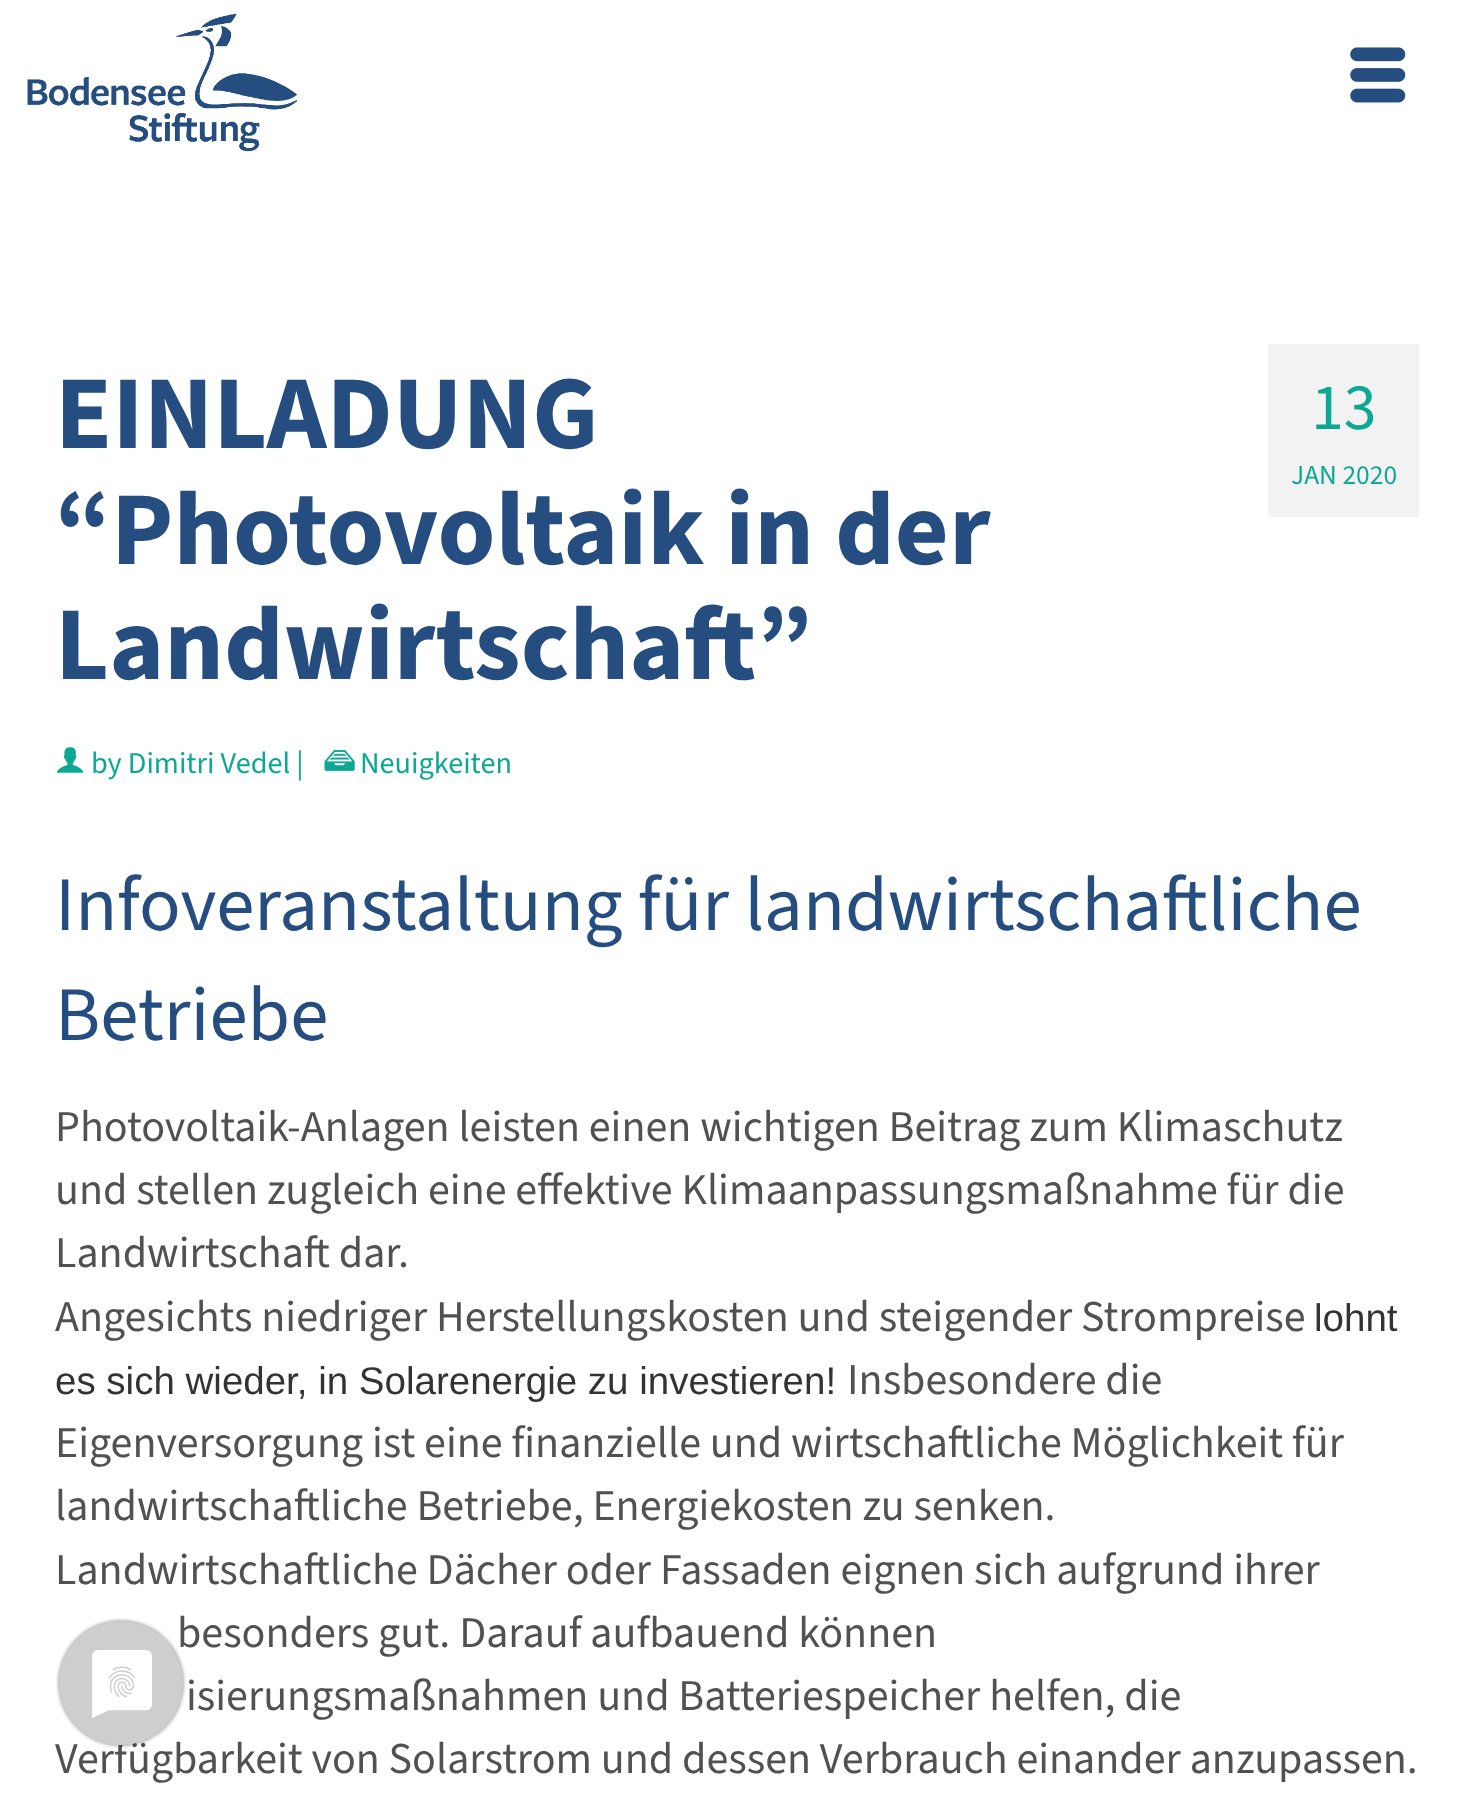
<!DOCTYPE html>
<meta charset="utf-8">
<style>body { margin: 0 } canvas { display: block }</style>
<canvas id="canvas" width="1472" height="1802"></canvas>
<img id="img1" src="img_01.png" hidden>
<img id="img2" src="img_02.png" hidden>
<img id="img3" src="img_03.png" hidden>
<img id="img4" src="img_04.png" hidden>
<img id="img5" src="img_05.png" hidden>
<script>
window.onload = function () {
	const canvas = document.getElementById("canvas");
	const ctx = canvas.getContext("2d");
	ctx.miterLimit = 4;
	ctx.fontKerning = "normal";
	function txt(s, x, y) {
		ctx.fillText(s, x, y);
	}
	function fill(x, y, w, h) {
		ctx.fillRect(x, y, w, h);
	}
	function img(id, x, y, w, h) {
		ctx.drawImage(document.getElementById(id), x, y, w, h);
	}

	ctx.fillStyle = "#FFFFFF";
	fill(0, 0, 1472, 1802);
	img("img1", 27, 13, 270, 139);
	img("img2", 1350, 47, 56, 56);
	img("img3", 56, 747, 28, 26);
	img("img4", 324, 750, 31, 21);
	ctx.fillStyle = "#F2F2F2";
	fill(1268, 344, 151, 173);
	ctx.font = "200 104.5px 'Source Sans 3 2'";
	ctx.fillStyle = "#254D7F";
	txt("EINLADUNG", 55, 448);
	txt("“Photovoltaik in der", 55, 564);
	txt("Landwirtschaft”", 55, 679);
	ctx.font = "200 30.25px 'Source Sans 3'";
	ctx.fillStyle = "#0DA893";
	txt("by Dimitri Vedel |", 91, 773);
	txt("Neuigkeiten", 360, 773);
	ctx.font = "200 66px 'Source Sans 3'";
	txt("13", 1311, 429);
	ctx.font = "200 27.5px 'Source Sans 3'";
	txt("JAN 2020", 1291, 484);
	ctx.font = "200 77px 'Source Sans 3'";
	ctx.fillStyle = "#254D7F";
	txt("Infoveranstaltung für landwirtschaftliche", 55, 930);
	txt("Betriebe", 55, 1040);
	ctx.font = "200 44px 'Source Sans 3'";
	ctx.fillStyle = "#515151";
	txt("Photovoltaik-Anlagen leisten einen wichtigen Beitrag zum Klimaschutz", 55, 1141);
	txt("und stellen zugleich eine effektive Klimaanpassungsmaßnahme für die", 55, 1204);
	txt("Landwirtschaft dar.", 55, 1267);
	txt("Angesichts niedriger Herstellungskosten und steigender Strompreise", 55, 1331);
	ctx.font = "38.5px Liberation Sans";
	ctx.fillStyle = "#333333";
	txt("lohnt", 1314, 1331);
	txt("es sich wieder, in Solarenergie zu investieren!", 55, 1394);
	ctx.font = "200 44px 'Source Sans 3'";
	ctx.fillStyle = "#515151";
	txt("Insbesondere die", 847, 1394);
	txt("Eigenversorgung ist eine finanzielle und wirtschaftliche Möglichkeit für", 55, 1457);
	txt("landwirtschaftliche Betriebe, Energiekosten zu senken.", 55, 1520);
	txt("Landwirtschaftliche Dächer oder Fassaden eignen sich aufgrund ihrer", 55, 1584);
	txt("besonders gut. Darauf aufbauend können", 177, 1647);
	txt("isierungsmaßnahmen und Batteriespeicher helfen, die", 186, 1710);
	txt("Verfügbarkeit von Solarstrom und dessen Verbrauch einander anzupassen.", 55, 1773);
	img("img5", 56, 1618, 130, 131);
};
</script>
